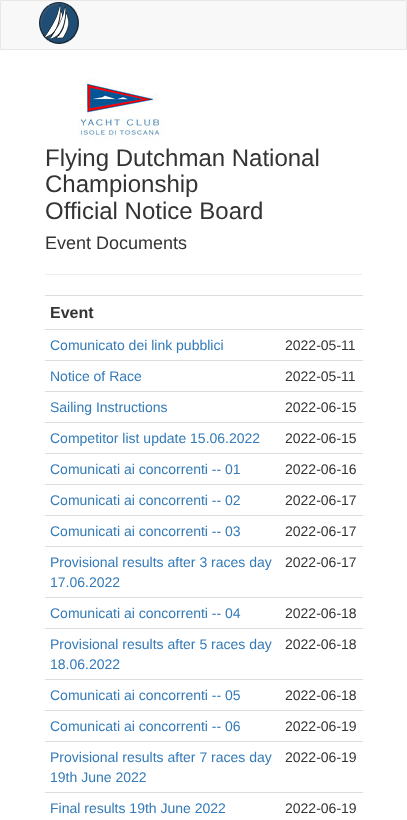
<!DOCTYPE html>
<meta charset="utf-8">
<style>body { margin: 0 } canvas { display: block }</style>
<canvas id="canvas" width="407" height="820"></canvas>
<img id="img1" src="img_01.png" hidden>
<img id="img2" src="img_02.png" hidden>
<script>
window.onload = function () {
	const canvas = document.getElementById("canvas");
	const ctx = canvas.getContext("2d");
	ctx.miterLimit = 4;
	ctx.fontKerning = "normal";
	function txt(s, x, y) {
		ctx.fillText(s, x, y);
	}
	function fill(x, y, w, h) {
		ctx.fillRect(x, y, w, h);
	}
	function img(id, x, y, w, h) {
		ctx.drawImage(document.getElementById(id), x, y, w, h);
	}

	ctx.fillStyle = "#FFFFFF";
	fill(0, 0, 407, 820);
	ctx.fillStyle = "#F8F8F8";
	ctx.beginPath();
	ctx.rect(0.5, 0.5, 406, 49);
	ctx.fill();
	ctx.strokeStyle = "#E7E7E7";
	ctx.stroke();
	img("img1", 39, 2, 40, 42);
	img("img2", 77, 78, 88, 64);
	ctx.fillStyle = "#EEEEEE";
	fill(45, 274, 317, 1);
	ctx.fillStyle = "#DDDDDD";
	fill(45, 295, 318, 1);
	fill(45, 329, 318, 1);
	fill(45, 360, 318, 1);
	fill(45, 391, 318, 1);
	fill(45, 422, 318, 1);
	fill(45, 453, 318, 1);
	fill(45, 484, 318, 1);
	fill(45, 515, 318, 1);
	fill(45, 546, 318, 1);
	fill(45, 597, 318, 1);
	fill(45, 628, 318, 1);
	fill(45, 679, 318, 1);
	fill(45, 710, 318, 1);
	fill(45, 741, 318, 1);
	fill(45, 792, 318, 1);
	ctx.font = "24px Liberation Sans";
	ctx.fillStyle = "#333333";
	txt("Flying Dutchman National", 45, 166);
	txt("Championship", 45, 192);
	txt("Official Notice Board", 45, 219);
	ctx.font = "18px Liberation Sans";
	txt("Event Documents", 45, 249);
	ctx.font = "bold 16px Liberation Sans";
	txt("Event", 50, 318);
	ctx.font = "14px Liberation Sans";
	ctx.fillStyle = "#337AB7";
	txt("Comunicato dei link pubblici", 50, 350);
	ctx.fillStyle = "#333333";
	txt("2022-05-11", 285, 350);
	ctx.fillStyle = "#337AB7";
	txt("Notice of Race", 50, 381);
	ctx.fillStyle = "#333333";
	txt("2022-05-11", 285, 381);
	ctx.fillStyle = "#337AB7";
	txt("Sailing Instructions", 50, 412);
	ctx.fillStyle = "#333333";
	txt("2022-06-15", 285, 412);
	ctx.fillStyle = "#337AB7";
	txt("Competitor list update 15.06.2022", 50, 443);
	ctx.fillStyle = "#333333";
	txt("2022-06-15", 285, 443);
	ctx.fillStyle = "#337AB7";
	txt("Comunicati ai concorrenti -- 01", 50, 474);
	ctx.fillStyle = "#333333";
	txt("2022-06-16", 285, 474);
	ctx.fillStyle = "#337AB7";
	txt("Comunicati ai concorrenti -- 02", 50, 505);
	ctx.fillStyle = "#333333";
	txt("2022-06-17", 285, 505);
	ctx.fillStyle = "#337AB7";
	txt("Comunicati ai concorrenti -- 03", 50, 536);
	ctx.fillStyle = "#333333";
	txt("2022-06-17", 285, 536);
	ctx.fillStyle = "#337AB7";
	txt("Provisional results after 3 races day", 50, 567);
	txt("17.06.2022", 50, 587);
	ctx.fillStyle = "#333333";
	txt("2022-06-17", 285, 567);
	ctx.fillStyle = "#337AB7";
	txt("Comunicati ai concorrenti -- 04", 50, 618);
	ctx.fillStyle = "#333333";
	txt("2022-06-18", 285, 618);
	ctx.fillStyle = "#337AB7";
	txt("Provisional results after 5 races day", 50, 649);
	txt("18.06.2022", 50, 669);
	ctx.fillStyle = "#333333";
	txt("2022-06-18", 285, 649);
	ctx.fillStyle = "#337AB7";
	txt("Comunicati ai concorrenti -- 05", 50, 700);
	ctx.fillStyle = "#333333";
	txt("2022-06-18", 285, 700);
	ctx.fillStyle = "#337AB7";
	txt("Comunicati ai concorrenti -- 06", 50, 731);
	ctx.fillStyle = "#333333";
	txt("2022-06-19", 285, 731);
	ctx.fillStyle = "#337AB7";
	txt("Provisional results after 7 races day", 50, 762);
	txt("19th June 2022", 50, 782);
	ctx.fillStyle = "#333333";
	txt("2022-06-19", 285, 762);
	ctx.fillStyle = "#337AB7";
	txt("Final results 19th June 2022", 50, 813);
	ctx.fillStyle = "#333333";
	txt("2022-06-19", 285, 813);
};
</script>
